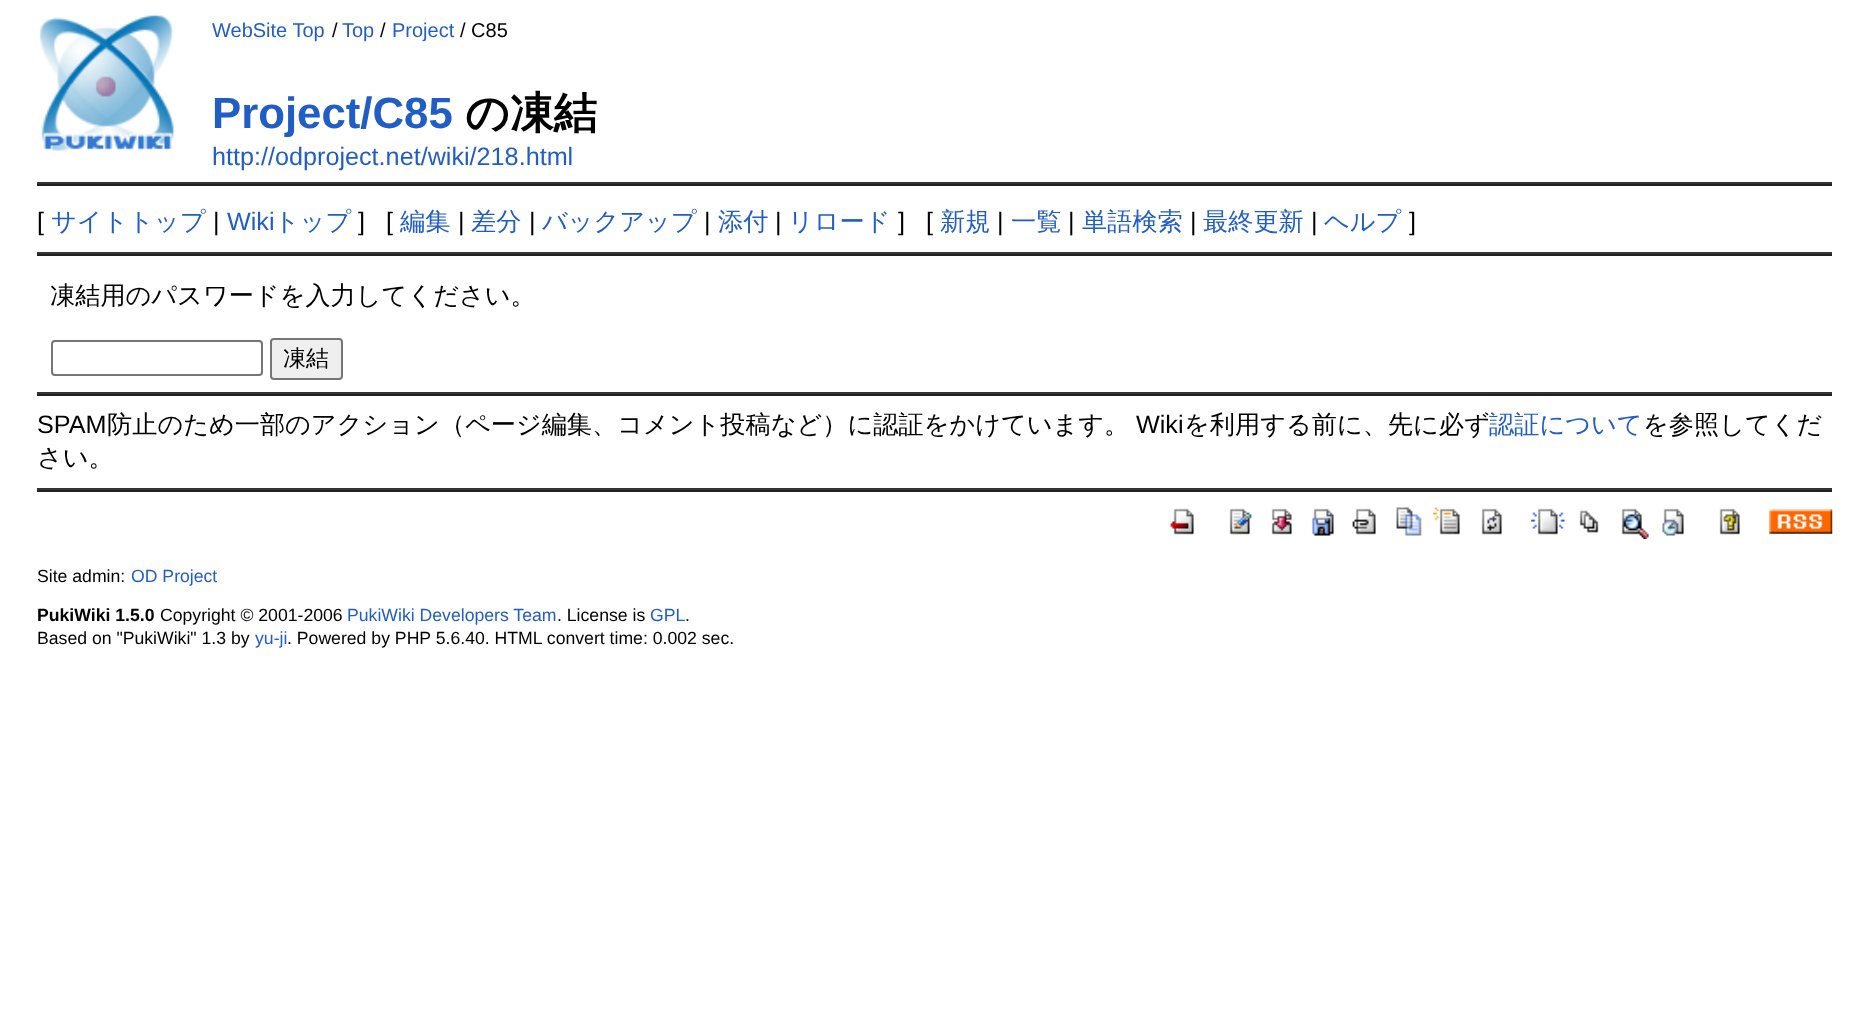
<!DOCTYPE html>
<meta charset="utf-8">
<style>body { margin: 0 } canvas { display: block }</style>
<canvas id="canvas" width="1868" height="1033"></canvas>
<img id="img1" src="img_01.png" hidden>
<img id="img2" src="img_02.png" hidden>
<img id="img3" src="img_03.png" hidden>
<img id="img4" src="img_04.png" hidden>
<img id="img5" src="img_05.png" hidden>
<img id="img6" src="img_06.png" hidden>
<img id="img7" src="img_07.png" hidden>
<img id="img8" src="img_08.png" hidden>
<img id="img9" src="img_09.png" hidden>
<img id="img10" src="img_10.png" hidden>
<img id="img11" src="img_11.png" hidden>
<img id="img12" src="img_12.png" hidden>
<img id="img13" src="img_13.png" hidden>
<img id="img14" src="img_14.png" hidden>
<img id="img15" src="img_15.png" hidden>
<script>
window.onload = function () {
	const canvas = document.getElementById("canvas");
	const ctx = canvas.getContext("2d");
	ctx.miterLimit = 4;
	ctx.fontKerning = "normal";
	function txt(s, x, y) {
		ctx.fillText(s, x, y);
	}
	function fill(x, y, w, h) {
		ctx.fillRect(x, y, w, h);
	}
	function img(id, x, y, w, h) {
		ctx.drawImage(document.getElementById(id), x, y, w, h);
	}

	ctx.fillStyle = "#FFFFFF";
	fill(0, 0, 1868, 1033);
	img("img1", 40, 15, 134, 136);
	ctx.fillStyle = "#333333";
	fill(37, 182, 1795, 2);
	ctx.fillStyle = "#222222";
	fill(37, 184, 1795, 2);
	ctx.fillStyle = "#333333";
	fill(37, 252, 1795, 2);
	ctx.fillStyle = "#222222";
	fill(37, 254, 1795, 2);
	ctx.beginPath();
	ctx.roundRect(52, 341, 210, 34, 3);
	ctx.strokeStyle = "#767676";
	ctx.lineWidth = 2;
	ctx.stroke();
	ctx.fillStyle = "#EFEFEF";
	ctx.beginPath();
	ctx.roundRect(271, 339, 71, 40, 3);
	ctx.fill();
	ctx.stroke();
	ctx.fillStyle = "#333333";
	fill(37, 392, 1795, 2);
	ctx.fillStyle = "#222222";
	fill(37, 394, 1795, 2);
	ctx.fillStyle = "#333333";
	fill(37, 488, 1795, 2);
	ctx.fillStyle = "#222222";
	fill(37, 490, 1795, 2);
	img("img2", 1170, 508, 24, 27);
	img("img3", 1229, 508, 23, 27);
	img("img4", 1271, 508, 21, 27);
	img("img5", 1312, 508, 22, 28);
	img("img6", 1352, 508, 24, 27);
	img("img7", 1396, 507, 26, 29);
	img("img8", 1433, 507, 27, 28);
	img("img9", 1481, 508, 21, 27);
	img("img10", 1531, 508, 34, 27);
	img("img11", 1579, 510, 20, 23);
	img("img12", 1621, 508, 28, 31);
	img("img13", 1662, 508, 22, 28);
	img("img14", 1719, 508, 21, 27);
	img("img15", 1769, 509, 64, 25);
	ctx.font = "20px Liberation Sans";
	ctx.fillStyle = "#215DC6";
	txt("WebSite Top", 212, 37);
	ctx.fillStyle = "#000000";
	txt("/", 332, 37);
	ctx.fillStyle = "#215DC6";
	txt("Top", 342, 37);
	ctx.fillStyle = "#000000";
	txt("/", 380, 37);
	ctx.fillStyle = "#215DC6";
	txt("Project", 392, 37);
	ctx.fillStyle = "#000000";
	txt("/ C85", 460, 37);
	ctx.font = "bold 43.75px Liberation Sans";
	ctx.fillStyle = "#215DC6";
	txt("Project/C85", 212, 128);
	ctx.font = "bold 43.75px WenQuanYi Zen Hei";
	ctx.fillStyle = "#000000";
	txt("の凍結", 465, 128);
	ctx.font = "25.2px Liberation Sans";
	ctx.fillStyle = "#215DC6";
	txt("http://odproject.net/wiki/218.html", 212, 165);
	ctx.fillStyle = "#000000";
	txt("[", 37, 230);
	ctx.font = "500 25.2px WenQuanYi Zen Hei";
	ctx.fillStyle = "#215DC6";
	txt("サイトトップ", 51, 230);
	ctx.font = "25.2px Liberation Sans";
	ctx.fillStyle = "#000000";
	txt("|", 213, 230);
	ctx.fillStyle = "#215DC6";
	txt("Wiki", 227, 230);
	ctx.font = "500 25.2px WenQuanYi Zen Hei";
	txt("トップ", 274, 230);
	ctx.font = "25.2px Liberation Sans";
	ctx.fillStyle = "#000000";
	txt("]", 358, 230);
	txt("[", 386, 230);
	ctx.font = "500 25.2px WenQuanYi Zen Hei";
	ctx.fillStyle = "#215DC6";
	txt("編集", 400, 230);
	ctx.font = "25.2px Liberation Sans";
	ctx.fillStyle = "#000000";
	txt("|", 458, 230);
	ctx.font = "500 25.2px WenQuanYi Zen Hei";
	ctx.fillStyle = "#215DC6";
	txt("差分", 471, 230);
	ctx.font = "25.2px Liberation Sans";
	ctx.fillStyle = "#000000";
	txt("|", 529, 230);
	ctx.font = "500 25.2px WenQuanYi Zen Hei";
	ctx.fillStyle = "#215DC6";
	txt("バックアップ", 542, 230);
	ctx.font = "25.2px Liberation Sans";
	ctx.fillStyle = "#000000";
	txt("|", 704, 230);
	ctx.font = "500 25.2px WenQuanYi Zen Hei";
	ctx.fillStyle = "#215DC6";
	txt("添付", 718, 230);
	ctx.font = "25.2px Liberation Sans";
	ctx.fillStyle = "#000000";
	txt("|", 775, 230);
	ctx.font = "500 25.2px WenQuanYi Zen Hei";
	ctx.fillStyle = "#215DC6";
	txt("リロード", 788, 230);
	ctx.font = "25.2px Liberation Sans";
	ctx.fillStyle = "#000000";
	txt("]", 898, 230);
	txt("[", 926, 230);
	ctx.font = "500 25.2px WenQuanYi Zen Hei";
	ctx.fillStyle = "#215DC6";
	txt("新規", 940, 230);
	ctx.font = "25.2px Liberation Sans";
	ctx.fillStyle = "#000000";
	txt("|", 997, 230);
	ctx.font = "500 25.2px WenQuanYi Zen Hei";
	ctx.fillStyle = "#215DC6";
	txt("一覧", 1011, 230);
	ctx.font = "25.2px Liberation Sans";
	ctx.fillStyle = "#000000";
	txt("|", 1068, 230);
	ctx.font = "500 25.2px WenQuanYi Zen Hei";
	ctx.fillStyle = "#215DC6";
	txt("単語検索", 1082, 230);
	ctx.font = "25.2px Liberation Sans";
	ctx.fillStyle = "#000000";
	txt("|", 1190, 230);
	ctx.font = "500 25.2px WenQuanYi Zen Hei";
	ctx.fillStyle = "#215DC6";
	txt("最終更新", 1203, 230);
	ctx.font = "25.2px Liberation Sans";
	ctx.fillStyle = "#000000";
	txt("|", 1311, 230);
	ctx.font = "500 25.2px WenQuanYi Zen Hei";
	ctx.fillStyle = "#215DC6";
	txt("ヘルプ", 1324, 230);
	ctx.font = "25.2px Liberation Sans";
	ctx.fillStyle = "#000000";
	txt("]", 1409, 230);
	ctx.font = "500 25.2px WenQuanYi Zen Hei";
	txt("凍結用のパスワードを入力してください。", 50, 304);
	ctx.font = "500 23px WenQuanYi Zen Hei";
	txt("凍結", 283, 366);
	ctx.font = "25.2px Liberation Sans";
	txt("SPAM", 37, 433);
	ctx.font = "500 25.2px WenQuanYi Zen Hei";
	txt("防止のため一部のアクション（ページ編集、コメント投稿など）に認証をかけています。", 107, 433);
	ctx.font = "25.2px Liberation Sans";
	txt("Wiki", 1136, 433);
	ctx.font = "500 25.2px WenQuanYi Zen Hei";
	txt("を利用する前に、先に必ず", 1184, 433);
	ctx.fillStyle = "#215DC6";
	txt("認証について", 1489, 433);
	ctx.fillStyle = "#000000";
	txt("を参照してくだ", 1643, 433);
	txt("さい。", 37, 466);
	ctx.font = "17.65px Liberation Sans";
	txt("Site admin:", 37, 582);
	ctx.fillStyle = "#215DC6";
	txt("OD Project", 131, 582);
	ctx.font = "bold 17.65px Liberation Sans";
	ctx.fillStyle = "#000000";
	txt("PukiWiki 1.5.0", 37, 621);
	ctx.font = "17.65px Liberation Sans";
	txt("Copyright © 2001-2006", 160, 621);
	ctx.fillStyle = "#215DC6";
	txt("PukiWiki Developers Team", 347, 621);
	ctx.fillStyle = "#000000";
	txt(". License is", 557, 621);
	ctx.fillStyle = "#215DC6";
	txt("GPL", 650, 621);
	ctx.fillStyle = "#000000";
	txt(".", 685, 621);
	txt("Based on \"PukiWiki\" 1.3 by", 37, 644);
	ctx.fillStyle = "#215DC6";
	txt("yu-ji", 255, 644);
	ctx.fillStyle = "#000000";
	txt(". Powered by PHP 5.6.40. HTML convert time: 0.002 sec.", 287, 644);
};
</script>
